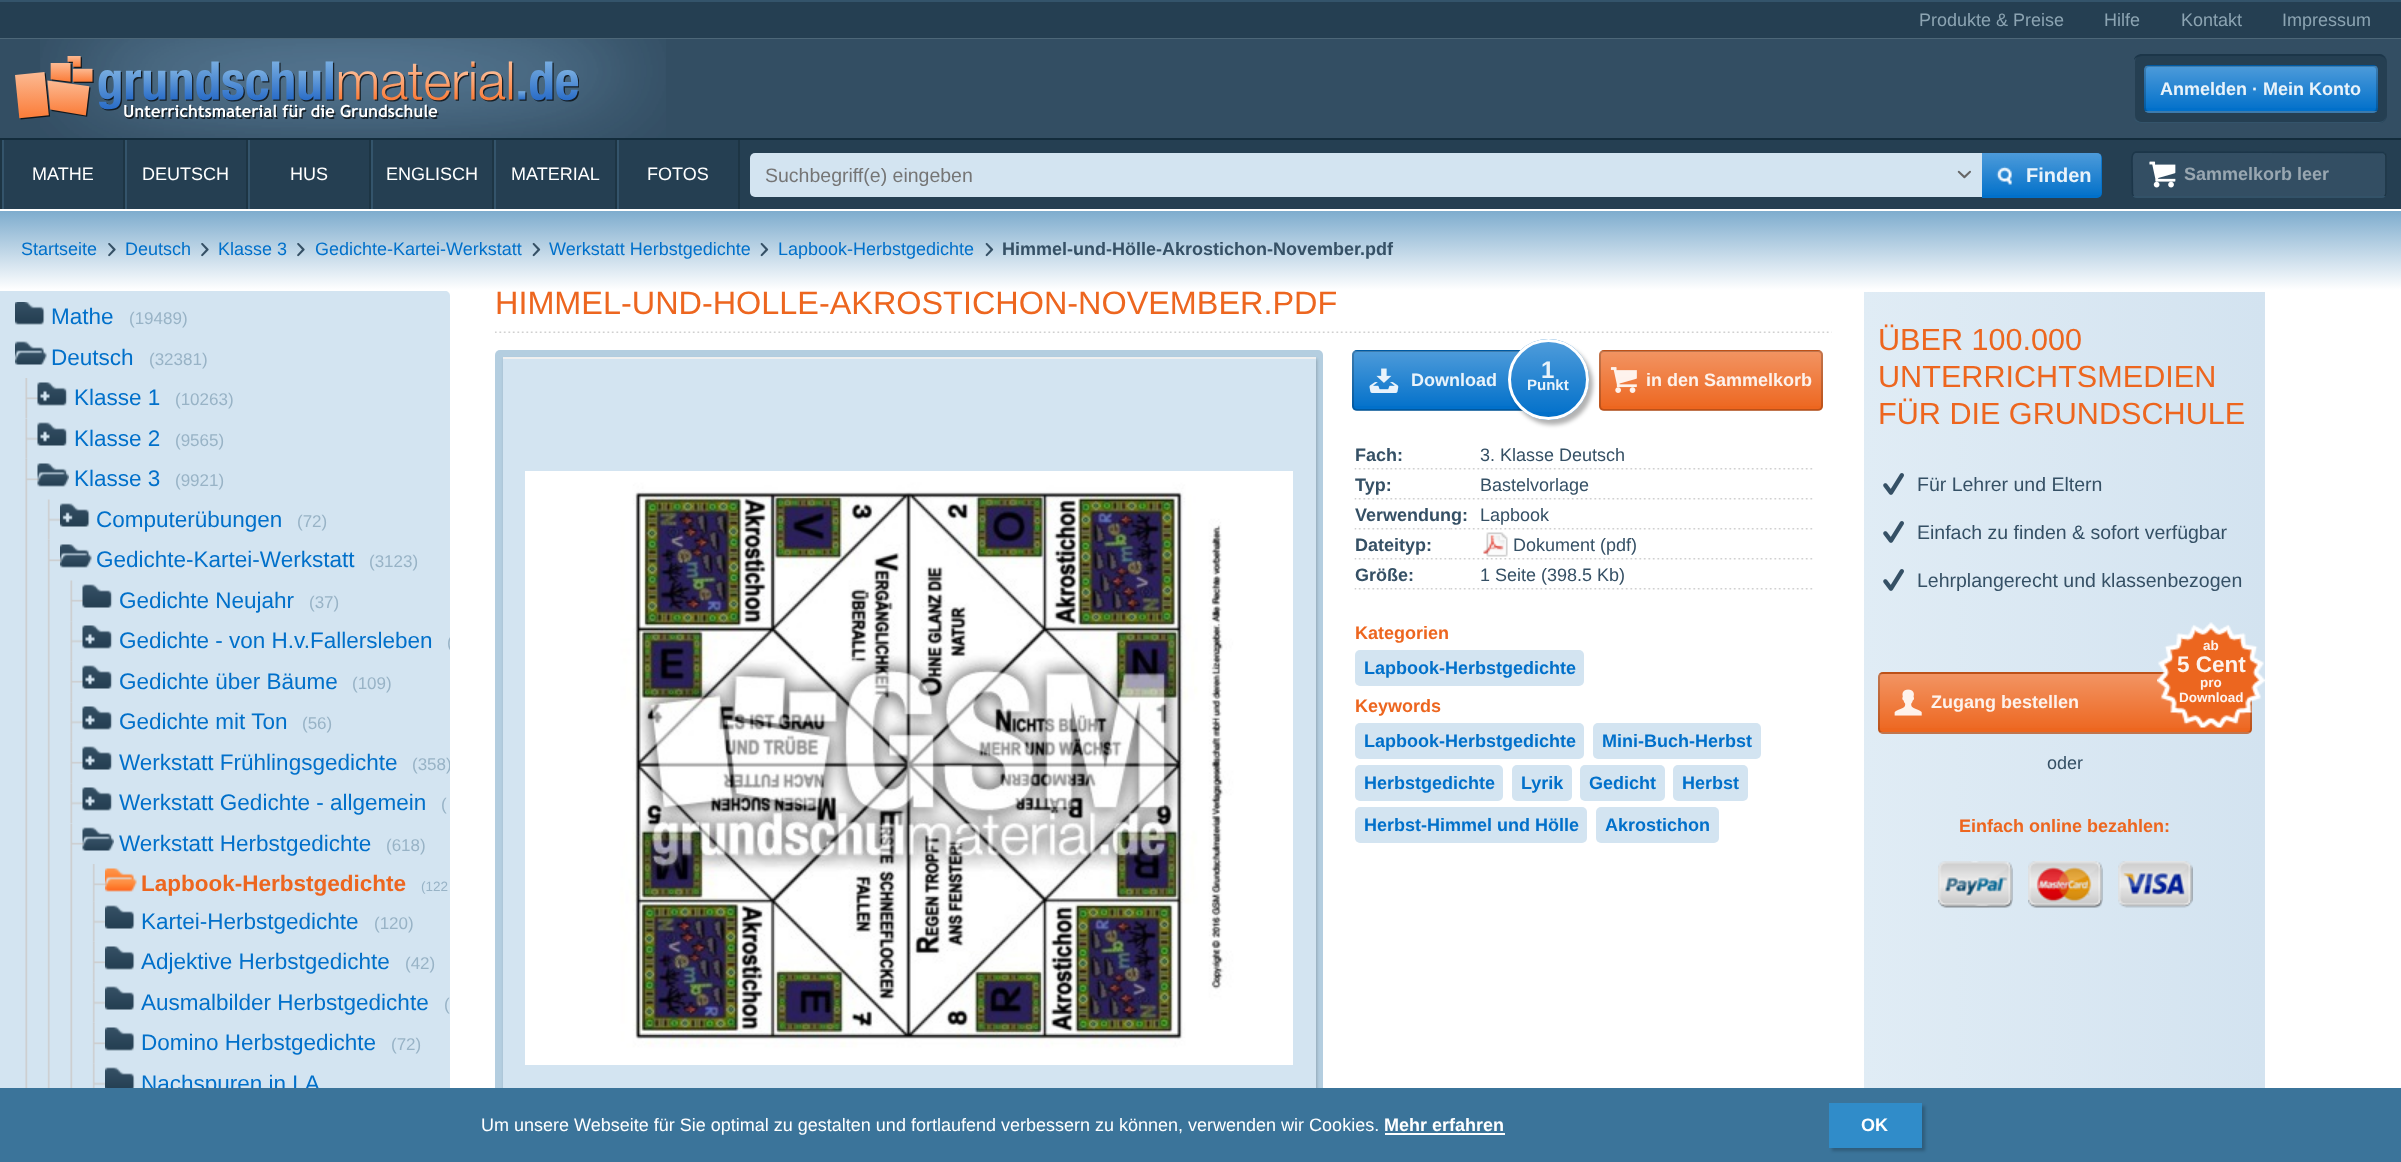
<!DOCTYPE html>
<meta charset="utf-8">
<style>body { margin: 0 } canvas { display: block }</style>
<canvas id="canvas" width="2401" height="1162"></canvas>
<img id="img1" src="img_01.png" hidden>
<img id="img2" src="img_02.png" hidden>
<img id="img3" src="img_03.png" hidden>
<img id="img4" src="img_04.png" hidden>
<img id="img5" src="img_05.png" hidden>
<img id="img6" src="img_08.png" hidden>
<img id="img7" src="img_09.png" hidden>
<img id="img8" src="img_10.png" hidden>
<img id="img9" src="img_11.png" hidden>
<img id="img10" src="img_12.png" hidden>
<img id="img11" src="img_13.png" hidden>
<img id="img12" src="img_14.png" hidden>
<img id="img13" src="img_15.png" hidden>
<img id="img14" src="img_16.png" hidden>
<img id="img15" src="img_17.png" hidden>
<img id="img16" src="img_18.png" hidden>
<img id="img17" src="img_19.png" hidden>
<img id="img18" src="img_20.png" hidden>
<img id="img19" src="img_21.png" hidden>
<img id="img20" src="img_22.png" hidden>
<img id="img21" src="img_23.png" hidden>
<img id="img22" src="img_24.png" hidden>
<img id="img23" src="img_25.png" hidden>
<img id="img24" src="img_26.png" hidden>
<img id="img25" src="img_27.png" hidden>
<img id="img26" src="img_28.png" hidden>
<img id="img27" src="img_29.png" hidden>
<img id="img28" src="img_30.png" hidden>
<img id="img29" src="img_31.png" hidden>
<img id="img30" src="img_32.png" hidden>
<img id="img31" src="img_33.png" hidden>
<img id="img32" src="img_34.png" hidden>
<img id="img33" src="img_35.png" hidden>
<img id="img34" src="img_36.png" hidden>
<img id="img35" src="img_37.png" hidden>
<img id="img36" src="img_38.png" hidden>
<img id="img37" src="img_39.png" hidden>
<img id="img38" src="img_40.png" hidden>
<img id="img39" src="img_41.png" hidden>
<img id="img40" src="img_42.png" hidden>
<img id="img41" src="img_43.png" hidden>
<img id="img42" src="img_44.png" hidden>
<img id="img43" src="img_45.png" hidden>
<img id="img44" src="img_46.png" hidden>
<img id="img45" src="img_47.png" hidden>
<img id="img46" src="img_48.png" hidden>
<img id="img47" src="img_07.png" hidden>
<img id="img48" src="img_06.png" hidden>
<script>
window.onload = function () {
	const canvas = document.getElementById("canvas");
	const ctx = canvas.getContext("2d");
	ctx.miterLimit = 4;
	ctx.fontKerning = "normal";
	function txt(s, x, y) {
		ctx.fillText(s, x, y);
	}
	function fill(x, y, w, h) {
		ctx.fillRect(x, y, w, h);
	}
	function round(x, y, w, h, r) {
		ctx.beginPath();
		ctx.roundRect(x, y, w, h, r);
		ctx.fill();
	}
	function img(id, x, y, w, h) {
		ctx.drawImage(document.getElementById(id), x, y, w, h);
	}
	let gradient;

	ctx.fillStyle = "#FFFFFF";
	fill(0, 0, 2401, 1162);
	ctx.fillStyle = "#34546B";
	fill(0, 0, 2401, 2);
	ctx.fillStyle = "#253F52";
	fill(0, 2, 2401, 36);
	ctx.fillStyle = "#4D6778";
	fill(0, 38, 2401, 1);
	ctx.fillStyle = "#334E63";
	fill(0, 39, 2401, 99);
	ctx.fillStyle = "#132C3C";
	fill(0, 138, 2401, 2);
	img("img1", 40, 39, 626, 99);
	img("img2", 15, 56, 564, 64);
	ctx.fillStyle = "#253F52";
	round(2135, 54, 252, 69, 8);
	ctx.fillStyle = "#1C3649";
	ctx.beginPath();
	ctx.moveTo(2142, 54);
	ctx.bezierCurveTo(2139, 54, 2134, 56, 2134, 60);
	ctx.bezierCurveTo(2136, 57, 2139, 56, 2142, 56);
	ctx.lineTo(2379, 56);
	ctx.bezierCurveTo(2383, 56, 2386, 58, 2386, 62);
	ctx.bezierCurveTo(2386, 57, 2383, 54, 2379, 54);
	ctx.closePath();
	ctx.fill();
	ctx.fillStyle = "#34546B";
	ctx.beginPath();
	ctx.moveTo(2379, 123);
	ctx.bezierCurveTo(2383, 123, 2386, 120, 2386, 116);
	ctx.bezierCurveTo(2386, 119, 2383, 122, 2379, 122);
	ctx.lineTo(2142, 122);
	ctx.bezierCurveTo(2139, 122, 2136, 120, 2134, 118);
	ctx.bezierCurveTo(2134, 121, 2139, 123, 2142, 123);
	ctx.closePath();
	ctx.fill();
	ctx.fillStyle = "#0170CA";
	round(2144, 65, 234, 48, 5);
	ctx.save();
	ctx.beginPath();
	ctx.roundRect(2144, 65, 234, 48, 5);
	ctx.clip();
	gradient = ctx.createLinearGradient(2261, 66, 2261, 111);
	gradient.addColorStop(0, "rgba(255, 255, 255, 0.3)");
	gradient.addColorStop(1, "rgba(255, 255, 255, 0)");
	ctx.fillStyle = gradient;
	fill(2144, 66, 234, 42);
	gradient = ctx.createLinearGradient(2261, 111, 2261, 156);
	gradient.addColorStop(0, "rgba(255, 255, 255, 0.3)");
	gradient.addColorStop(1, "rgba(255, 255, 255, 0)");
	ctx.fillStyle = gradient;
	fill(2144, 111, 234, 2);
	ctx.restore();
	ctx.beginPath();
	ctx.roundRect(2145, 66, 232, 46, 4);
	ctx.strokeStyle = "rgba(0, 0, 0, 0.2)";
	ctx.lineWidth = 2;
	ctx.stroke();
	ctx.fillStyle = "#253F52";
	fill(4, 140, 2397, 69);
	ctx.fillStyle = "#1D3544";
	fill(0, 140, 2, 69);
	fill(123, 140, 2, 69);
	ctx.fillStyle = "#34546B";
	fill(2, 140, 2, 69);
	ctx.fillStyle = "#1D3544";
	fill(246, 140, 2, 69);
	ctx.fillStyle = "#34546B";
	fill(125, 140, 2, 69);
	ctx.fillStyle = "#1D3544";
	fill(369, 140, 2, 69);
	ctx.fillStyle = "#34546B";
	fill(248, 140, 2, 69);
	ctx.fillStyle = "#1D3544";
	fill(492, 140, 2, 69);
	ctx.fillStyle = "#34546B";
	fill(371, 140, 2, 69);
	ctx.fillStyle = "#1D3544";
	fill(615, 140, 2, 69);
	ctx.fillStyle = "#34546B";
	fill(494, 140, 2, 69);
	ctx.fillStyle = "#1D3544";
	fill(738, 140, 2, 69);
	ctx.fillStyle = "#34546B";
	fill(617, 140, 2, 69);
	ctx.fillStyle = "#334E63";
	round(2132, 152, 255, 46, 5);
	ctx.beginPath();
	ctx.moveTo(2384.5, 153.5);
	ctx.bezierCurveTo(2385.5, 154, 2386, 155, 2386, 156);
	ctx.lineTo(2386, 193.5);
	ctx.bezierCurveTo(2386, 194.5, 2385.5, 195.5, 2384.5, 196);
	ctx.strokeStyle = "#1D3544";
	ctx.lineWidth = 1.5;
	ctx.stroke();
	ctx.beginPath();
	ctx.moveTo(2384.5, 196);
	ctx.bezierCurveTo(2384, 197, 2383, 197, 2382, 197);
	ctx.lineTo(2136, 197);
	ctx.bezierCurveTo(2135, 197, 2134, 197, 2133.5, 196);
	ctx.strokeStyle = "#34546B";
	ctx.stroke();
	ctx.beginPath();
	ctx.moveTo(2133.5, 196);
	ctx.lineTo(2132.5, 194);
	ctx.lineTo(2132, 162);
	ctx.bezierCurveTo(2132, 159.5, 2131, 152.5, 2136, 152);
	ctx.lineTo(2383, 152.5);
	ctx.lineTo(2384.5, 153.5);
	ctx.strokeStyle = "#1C3649";
	ctx.stroke();
	img("img3", 2149, 161, 27, 27);
	ctx.fillStyle = "#D3E4F1";
	round(750, 153, 1344, 44, 5);
	img("img4", 1957, 170, 14, 9);
	ctx.fillStyle = "#0170CA";
	ctx.beginPath();
	ctx.roundRect(1982, 153, 120, 45, [0, 5, 5, 0]);
	ctx.fill();
	img("img5", 1982, 153, 120, 42);
	ctx.fillStyle = "#D3E4F1";
	ctx.beginPath();
	ctx.moveTo(0, 291);
	ctx.lineTo(445, 291);
	ctx.bezierCurveTo(448, 291, 450, 293, 450, 296);
	ctx.lineTo(450, 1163);
	ctx.lineTo(0, 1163);
	ctx.closePath();
	ctx.fill();
	img("img6", 15, 302, 30, 23);
	img("img7", 15, 341, 32, 24);
	img("img8", 25, 378, 13, 41);
	img("img9", 37, 382, 31, 24);
	img("img10", 25, 419, 13, 41);
	img("img11", 37, 422, 31, 24);
	img("img12", 25, 459, 15, 629);
	img("img13", 37, 463, 32, 24);
	img("img14", 47, 499, 13, 42);
	img("img15", 60, 503, 30, 24);
	img("img16", 47, 540, 15, 548);
	img("img17", 60, 544, 32, 24);
	img("img18", 70, 580, 13, 41);
	img("img19", 82, 584, 31, 24);
	img("img20", 70, 621, 13, 41);
	img("img21", 82, 625, 31, 24);
	img("img22", 70, 661, 13, 41);
	img("img23", 82, 665, 31, 24);
	img("img20", 70, 702, 13, 41);
	img("img21", 82, 706, 31, 24);
	img("img22", 70, 742, 13, 41);
	img("img23", 82, 746, 31, 24);
	img("img20", 70, 783, 13, 41);
	img("img21", 82, 787, 31, 24);
	img("img24", 70, 824, 15, 264);
	img("img25", 82, 827, 32, 24);
	img("img26", 92, 864, 15, 38);
	img("img27", 105, 868, 32, 24);
	img("img28", 92, 901, 13, 42);
	img("img29", 105, 905, 30, 24);
	img("img30", 92, 942, 13, 41);
	img("img31", 105, 946, 30, 24);
	img("img28", 92, 982, 13, 42);
	img("img29", 105, 986, 30, 24);
	img("img30", 92, 1023, 13, 41);
	img("img31", 105, 1027, 30, 24);
	img("img32", 92, 1063, 13, 25);
	img("img33", 105, 1067, 30, 21);
	img("img34", 495, 331, 1337, 2);
	ctx.fillStyle = "#B4CEE0";
	round(495, 350, 828, 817, 5);
	ctx.fillStyle = "rgba(0, 0, 0, 0.2)";
	ctx.filter = "blur(1.5px)";
	ctx.beginPath();
	ctx.rect(504, 359, 813, 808);
	ctx.fill();
	ctx.filter = "none";
	ctx.fillStyle = "#D3E4F1";
	fill(503, 359, 813, 729);
	ctx.fillStyle = "#EFEFEF";
	fill(503, 357, 813, 2);
	img("img35", 525, 471, 768, 594);
	ctx.fillStyle = "#0170CA";
	round(1352, 350, 223, 61, 5);
	ctx.save();
	ctx.beginPath();
	ctx.roundRect(1352, 350, 223, 61, 5);
	ctx.clip();
	gradient = ctx.createLinearGradient(1463, 351, 1463, 410);
	gradient.addColorStop(0, "rgba(255, 255, 255, 0.3)");
	gradient.addColorStop(1, "rgba(255, 255, 255, 0)");
	ctx.fillStyle = gradient;
	fill(1352, 351, 168, 55);
	gradient = ctx.createLinearGradient(1463, 410, 1463, 468);
	gradient.addColorStop(0, "rgba(255, 255, 255, 0.3)");
	gradient.addColorStop(1, "rgba(255, 255, 255, 0)");
	ctx.fillStyle = gradient;
	fill(1352, 410, 171, 1);
	ctx.restore();
	ctx.beginPath();
	ctx.roundRect(1353, 351, 221, 59, 4);
	ctx.strokeStyle = "rgba(0, 0, 0, 0.2)";
	ctx.lineWidth = 2;
	ctx.stroke();
	img("img36", 1369, 368, 30, 25);
	ctx.fillStyle = "rgba(0, 0, 0, 0.3)";
	ctx.filter = "blur(2px)";
	ctx.beginPath();
	ctx.roundRect(1512, 344, 81, 81, 40.5);
	ctx.fill();
	ctx.filter = "none";
	ctx.fillStyle = "#0170CA";
	ctx.beginPath();
	ctx.arc(1548.5, 379.5, 40.5, 0, Math.PI * 2);
	ctx.fill();
	ctx.save();
	ctx.beginPath();
	ctx.roundRect(1508, 339, 81, 81, 40.5);
	ctx.clip();
	gradient = ctx.createLinearGradient(1548, 342, 1548, 417);
	gradient.addColorStop(0, "rgba(255, 255, 255, 0.3)");
	gradient.addColorStop(1, "rgba(255, 255, 255, 0)");
	ctx.fillStyle = gradient;
	fill(1508, 342, 81, 70);
	ctx.restore();
	ctx.beginPath();
	ctx.arc(1548.5, 379.5, 39, 0, Math.PI * 2);
	ctx.strokeStyle = "#FFFFFF";
	ctx.lineWidth = 3;
	ctx.stroke();
	ctx.fillStyle = "#ED661F";
	round(1599, 350, 224, 61, 5);
	ctx.save();
	ctx.beginPath();
	ctx.roundRect(1599, 350, 224, 61, 5);
	ctx.clip();
	gradient = ctx.createLinearGradient(1711, 351, 1711, 410);
	gradient.addColorStop(0, "rgba(255, 255, 255, 0.3)");
	gradient.addColorStop(1, "rgba(255, 255, 255, 0)");
	ctx.fillStyle = gradient;
	fill(1599, 351, 224, 55);
	gradient = ctx.createLinearGradient(1711, 410, 1711, 468);
	gradient.addColorStop(0, "rgba(255, 255, 255, 0.3)");
	gradient.addColorStop(1, "rgba(255, 255, 255, 0)");
	ctx.fillStyle = gradient;
	fill(1599, 410, 224, 1);
	ctx.restore();
	ctx.beginPath();
	ctx.roundRect(1600, 351, 222, 59, 4);
	ctx.strokeStyle = "rgba(0, 0, 0, 0.2)";
	ctx.lineWidth = 2;
	ctx.stroke();
	img("img37", 1610, 367, 27, 26);
	img("img38", 1354, 468, 97, 2);
	img("img39", 1450, 468, 363, 2);
	img("img38", 1354, 498, 97, 2);
	img("img39", 1450, 498, 363, 2);
	img("img38", 1354, 528, 97, 2);
	img("img39", 1450, 528, 363, 2);
	img("img38", 1354, 558, 97, 2);
	img("img39", 1450, 558, 363, 2);
	img("img40", 1483, 532, 25, 25);
	img("img38", 1354, 588, 97, 2);
	img("img39", 1450, 588, 363, 2);
	ctx.fillStyle = "#D3E4F1";
	round(1355, 650, 229, 36, 5);
	round(1355, 723, 229, 36, 5);
	round(1593, 723, 168, 36, 5);
	round(1355, 765, 148, 36, 5);
	round(1512, 765, 60, 36, 5);
	round(1580, 765, 85, 36, 5);
	round(1673, 765, 75, 36, 5);
	round(1355, 807, 232, 36, 5);
	round(1596, 807, 123, 36, 5);
	gradient = ctx.createLinearGradient(1863, 912, 2265, 912);
	gradient.addColorStop(0, "#E0ECF5");
	gradient.addColorStop(1, "#D3E3F0");
	ctx.fillStyle = gradient;
	fill(1864, 292, 401, 796);
	img("img41", 1883, 473, 21, 22);
	img("img41", 1883, 521, 21, 22);
	img("img41", 1883, 569, 21, 22);
	ctx.fillStyle = "#ED661F";
	round(1878, 672, 374, 62, 5);
	gradient = ctx.createLinearGradient(2065, 674, 2065, 732);
	gradient.addColorStop(0, "rgba(255, 255, 255, 0.3)");
	gradient.addColorStop(1, "rgba(255, 255, 255, 0)");
	ctx.fillStyle = gradient;
	fill(1878, 674, 374, 54);
	ctx.save();
	ctx.beginPath();
	ctx.roundRect(1878, 672, 374, 62, 5);
	ctx.clip();
	gradient = ctx.createLinearGradient(2065, 732, 2065, 791);
	gradient.addColorStop(0, "rgba(255, 255, 255, 0.3)");
	gradient.addColorStop(1, "rgba(255, 255, 255, 0)");
	ctx.fillStyle = gradient;
	fill(1878, 732, 374, 2);
	ctx.restore();
	ctx.beginPath();
	ctx.roundRect(1879, 673, 372, 60, 4);
	ctx.stroke();
	img("img42", 1894, 689, 28, 27);
	img("img43", 2157, 622, 108, 106);
	img("img44", 1938, 861, 75, 47);
	img("img45", 2028, 861, 75, 47);
	img("img46", 2118, 861, 75, 47);
	ctx.font = "18px Liberation Sans";
	ctx.fillStyle = "#8CA4B2";
	txt("Produkte & Preise", 1919, 26);
	txt("Hilfe", 2104, 26);
	txt("Kontakt", 2181, 26);
	txt("Impressum", 2282, 26);
	ctx.font = "bold 18px Liberation Sans";
	ctx.fillStyle = "#E9F3FA";
	txt("Anmelden · Mein Konto", 2160, 95);
	ctx.font = "18px Liberation Sans";
	ctx.fillStyle = "#FFFFFF";
	txt("MATHE", 32, 180);
	txt("DEUTSCH", 142, 180);
	txt("HUS", 290, 180);
	txt("ENGLISCH", 386, 180);
	txt("MATERIAL", 511, 180);
	txt("FOTOS", 647, 180);
	ctx.font = "bold 18px Liberation Sans";
	ctx.fillStyle = "#99A7B1";
	txt("Sammelkorb leer", 2184, 180);
	ctx.font = "19.5px Liberation Sans";
	ctx.fillStyle = "#757575";
	txt("Suchbegriff(e) eingeben", 765, 182);
	ctx.font = "bold 20px Liberation Sans";
	ctx.fillStyle = "#E9F3FA";
	txt("Finden", 2026, 182);
	ctx.font = "22.5px Liberation Sans";
	ctx.fillStyle = "#0170CA";
	txt("Mathe", 51, 324);
	ctx.font = "17px Liberation Sans";
	ctx.fillStyle = "#98B3C6";
	txt("(19489)", 129, 324);
	ctx.font = "22.5px Liberation Sans";
	ctx.fillStyle = "#0170CA";
	txt("Deutsch", 51, 365);
	ctx.font = "17px Liberation Sans";
	ctx.fillStyle = "#98B3C6";
	txt("(32381)", 149, 365);
	ctx.font = "22.5px Liberation Sans";
	ctx.fillStyle = "#0170CA";
	txt("Klasse 1", 74, 405);
	ctx.font = "17px Liberation Sans";
	ctx.fillStyle = "#98B3C6";
	txt("(10263)", 175, 405);
	ctx.font = "22.5px Liberation Sans";
	ctx.fillStyle = "#0170CA";
	txt("Klasse 2", 74, 446);
	ctx.font = "17px Liberation Sans";
	ctx.fillStyle = "#98B3C6";
	txt("(9565)", 175, 446);
	ctx.font = "22.5px Liberation Sans";
	ctx.fillStyle = "#0170CA";
	txt("Klasse 3", 74, 486);
	ctx.font = "17px Liberation Sans";
	ctx.fillStyle = "#98B3C6";
	txt("(9921)", 175, 486);
	ctx.font = "22.5px Liberation Sans";
	ctx.fillStyle = "#0170CA";
	txt("Computerübungen", 96, 527);
	ctx.font = "17px Liberation Sans";
	ctx.fillStyle = "#98B3C6";
	txt("(72)", 297, 527);
	ctx.font = "22.5px Liberation Sans";
	ctx.fillStyle = "#0170CA";
	txt("Gedichte-Kartei-Werkstatt", 96, 567);
	ctx.font = "17px Liberation Sans";
	ctx.fillStyle = "#98B3C6";
	txt("(3123)", 369, 567);
	ctx.font = "22.5px Liberation Sans";
	ctx.fillStyle = "#0170CA";
	txt("Gedichte Neujahr", 119, 608);
	ctx.font = "17px Liberation Sans";
	ctx.fillStyle = "#98B3C6";
	txt("(37)", 309, 608);
	ctx.font = "22.5px Liberation Sans";
	ctx.fillStyle = "#0170CA";
	txt("Gedichte - von H.v.Fallersleben", 119, 648);
	ctx.save();
	ctx.beginPath();
	ctx.rect(0, 291, 450, 812);
	ctx.clip();
	ctx.font = "17px Liberation Sans";
	ctx.fillStyle = "#98B3C6";
	txt("(", 447, 648);
	ctx.restore();
	txt("Gedichte über Bäume", 119, 689);
	ctx.font = "17px Liberation Sans";
	ctx.fillStyle = "#98B3C6";
	txt("(109)", 352, 689);
	ctx.font = "22.5px Liberation Sans";
	ctx.fillStyle = "#0170CA";
	txt("Gedichte mit Ton", 119, 729);
	ctx.font = "17px Liberation Sans";
	ctx.fillStyle = "#98B3C6";
	txt("(56)", 302, 729);
	ctx.font = "22.5px Liberation Sans";
	ctx.fillStyle = "#0170CA";
	txt("Werkstatt Frühlingsgedichte", 119, 770);
	ctx.save();
	ctx.beginPath();
	ctx.rect(0, 291, 450, 812);
	ctx.clip();
	ctx.font = "17px Liberation Sans";
	ctx.fillStyle = "#98B3C6";
	txt("(358)", 412, 770);
	ctx.restore();
	txt("Werkstatt Gedichte - allgemein", 119, 810);
	ctx.font = "17px Liberation Sans";
	ctx.fillStyle = "#98B3C6";
	txt("(", 441, 810);
	ctx.font = "22.5px Liberation Sans";
	ctx.fillStyle = "#0170CA";
	txt("Werkstatt Herbstgedichte", 119, 851);
	ctx.font = "17px Liberation Sans";
	ctx.fillStyle = "#98B3C6";
	txt("(618)", 386, 851);
	ctx.font = "bold 22.5px Liberation Sans";
	ctx.fillStyle = "#ED661F";
	txt("Lapbook-Herbstgedichte", 141, 891);
	ctx.font = "13.5px Liberation Sans";
	ctx.fillStyle = "#98B3C6";
	txt("(122", 421, 891);
	ctx.font = "22.5px Liberation Sans";
	ctx.fillStyle = "#0170CA";
	txt("Kartei-Herbstgedichte", 141, 929);
	ctx.font = "17px Liberation Sans";
	ctx.fillStyle = "#98B3C6";
	txt("(120)", 374, 929);
	ctx.font = "22.5px Liberation Sans";
	ctx.fillStyle = "#0170CA";
	txt("Adjektive Herbstgedichte", 141, 969);
	ctx.font = "17px Liberation Sans";
	ctx.fillStyle = "#98B3C6";
	txt("(42)", 405, 969);
	ctx.font = "22.5px Liberation Sans";
	ctx.fillStyle = "#0170CA";
	txt("Ausmalbilder Herbstgedichte", 141, 1010);
	ctx.font = "17px Liberation Sans";
	ctx.fillStyle = "#98B3C6";
	txt("(", 444, 1010);
	ctx.font = "22.5px Liberation Sans";
	ctx.fillStyle = "#0170CA";
	txt("Domino Herbstgedichte", 141, 1050);
	ctx.font = "17px Liberation Sans";
	ctx.fillStyle = "#98B3C6";
	txt("(72)", 391, 1050);
	ctx.font = "22.5px Liberation Sans";
	ctx.fillStyle = "#0170CA";
	txt("Nachspuren in LA", 141, 1091);
	ctx.font = "32.4px Liberation Sans";
	ctx.fillStyle = "#ED661F";
	txt("HIMMEL-UND-HÖLLE-AKROSTICHON-NOVEMBER.PDF", 495, 314);
	gradient = ctx.createLinearGradient(1201, 210, 1201, 290);
	gradient.addColorStop(0, "#7CABCD");
	gradient.addColorStop(1, "#FFFFFF");
	ctx.fillStyle = gradient;
	fill(0, 211, 2401, 79);
	ctx.font = "bold 18px Liberation Sans";
	ctx.fillStyle = "#355065";
	txt("Himmel-und-Hölle-Akrostichon-November.pdf", 1002, 255);
	img("img47", 985, 242, 9, 15);
	ctx.font = "18px Liberation Sans";
	ctx.fillStyle = "#0170CA";
	txt("Lapbook-Herbstgedichte", 778, 255);
	img("img47", 760, 242, 9, 15);
	txt("Werkstatt Herbstgedichte", 549, 255);
	img("img47", 532, 242, 9, 15);
	txt("Gedichte-Kartei-Werkstatt", 315, 255);
	img("img48", 297, 243, 8, 14);
	txt("Klasse 3", 218, 255);
	img("img48", 201, 243, 8, 14);
	txt("Deutsch", 125, 255);
	img("img48", 108, 243, 8, 14);
	txt("Startseite", 21, 255);
	ctx.font = "bold 18px Liberation Sans";
	ctx.fillStyle = "#E9F3FA";
	txt("Download", 1411, 386);
	ctx.font = "bold 24px Liberation Sans";
	txt("1", 1541, 378);
	ctx.font = "bold 15px Liberation Sans";
	txt("Punkt", 1527, 390);
	ctx.font = "bold 18px Liberation Sans";
	ctx.fillStyle = "#FDF2EC";
	txt("in den Sammelkorb", 1646, 386);
	ctx.fillStyle = "#355065";
	txt("Fach:", 1355, 461);
	ctx.font = "18px Liberation Sans";
	txt("3. Klasse Deutsch", 1480, 461);
	ctx.font = "bold 18px Liberation Sans";
	txt("Typ:", 1355, 491);
	ctx.font = "18px Liberation Sans";
	txt("Bastelvorlage", 1480, 491);
	ctx.font = "bold 18px Liberation Sans";
	txt("Verwendung:", 1355, 521);
	ctx.font = "18px Liberation Sans";
	txt("Lapbook", 1480, 521);
	ctx.font = "bold 18px Liberation Sans";
	txt("Dateityp:", 1355, 551);
	ctx.font = "18px Liberation Sans";
	txt("Dokument (pdf)", 1513, 551);
	ctx.font = "bold 18px Liberation Sans";
	txt("Größe:", 1355, 581);
	ctx.font = "18px Liberation Sans";
	txt("1 Seite (398.5 Kb)", 1480, 581);
	ctx.font = "bold 18px Liberation Sans";
	ctx.fillStyle = "#ED661F";
	txt("Kategorien", 1355, 639);
	ctx.fillStyle = "#0170CA";
	txt("Lapbook-Herbstgedichte", 1364, 674);
	ctx.fillStyle = "#ED661F";
	txt("Keywords", 1355, 712);
	ctx.fillStyle = "#0170CA";
	txt("Lapbook-Herbstgedichte", 1364, 747);
	txt("Mini-Buch-Herbst", 1602, 747);
	txt("Herbstgedichte", 1364, 789);
	txt("Lyrik", 1521, 789);
	txt("Gedicht", 1589, 789);
	txt("Herbst", 1682, 789);
	txt("Herbst-Himmel und Hölle", 1364, 831);
	txt("Akrostichon", 1605, 831);
	ctx.font = "30.6px Liberation Sans";
	ctx.fillStyle = "#ED661F";
	txt("ÜBER 100.000", 1878, 350);
	txt("UNTERRICHTSMEDIEN", 1878, 387);
	txt("FÜR DIE GRUNDSCHULE", 1878, 424);
	ctx.font = "19.5px Liberation Sans";
	ctx.fillStyle = "#355065";
	txt("Für Lehrer und Eltern", 1917, 491);
	txt("Einfach zu finden & sofort verfügbar", 1917, 539);
	txt("Lehrplangerecht und klassenbezogen", 1917, 587);
	ctx.font = "bold 18px Liberation Sans";
	ctx.fillStyle = "#FDF2EC";
	txt("Zugang bestellen", 1931, 708);
	ctx.font = "bold 13.5px Liberation Sans";
	txt("ab", 2203, 650);
	ctx.font = "bold 22.5px Liberation Sans";
	txt("5 Cent", 2177, 672);
	ctx.font = "bold 13.5px Liberation Sans";
	txt("pro", 2200, 687);
	txt("Download", 2179, 702);
	ctx.font = "18px Liberation Sans";
	ctx.fillStyle = "#355065";
	txt("oder", 2047, 769);
	ctx.font = "bold 18px Liberation Sans";
	ctx.fillStyle = "#ED661F";
	txt("Einfach online bezahlen:", 1959, 832);
	ctx.fillStyle = "#3B749A";
	fill(0, 1088, 2401, 74);
	ctx.font = "18px Liberation Sans";
	ctx.fillStyle = "#FFFFFF";
	txt("Um unsere Webseite für Sie optimal zu gestalten und fortlaufend verbessern zu können, verwenden wir Cookies.", 481, 1131);
	ctx.font = "bold 18px Liberation Sans";
	txt("Mehr erfahren", 1384, 1131);
	fill(1385, 1133, 120, 2);
	ctx.fillStyle = "rgba(0, 0, 0, 0.2)";
	ctx.filter = "blur(1.5px)";
	ctx.beginPath();
	ctx.rect(1832, 1106, 93, 45);
	ctx.fill();
	ctx.filter = "none";
	ctx.fillStyle = "#308CC9";
	fill(1829, 1103, 93, 45);
	ctx.fillStyle = "#FFFFFF";
	txt("OK", 1861, 1131);
};
</script>
